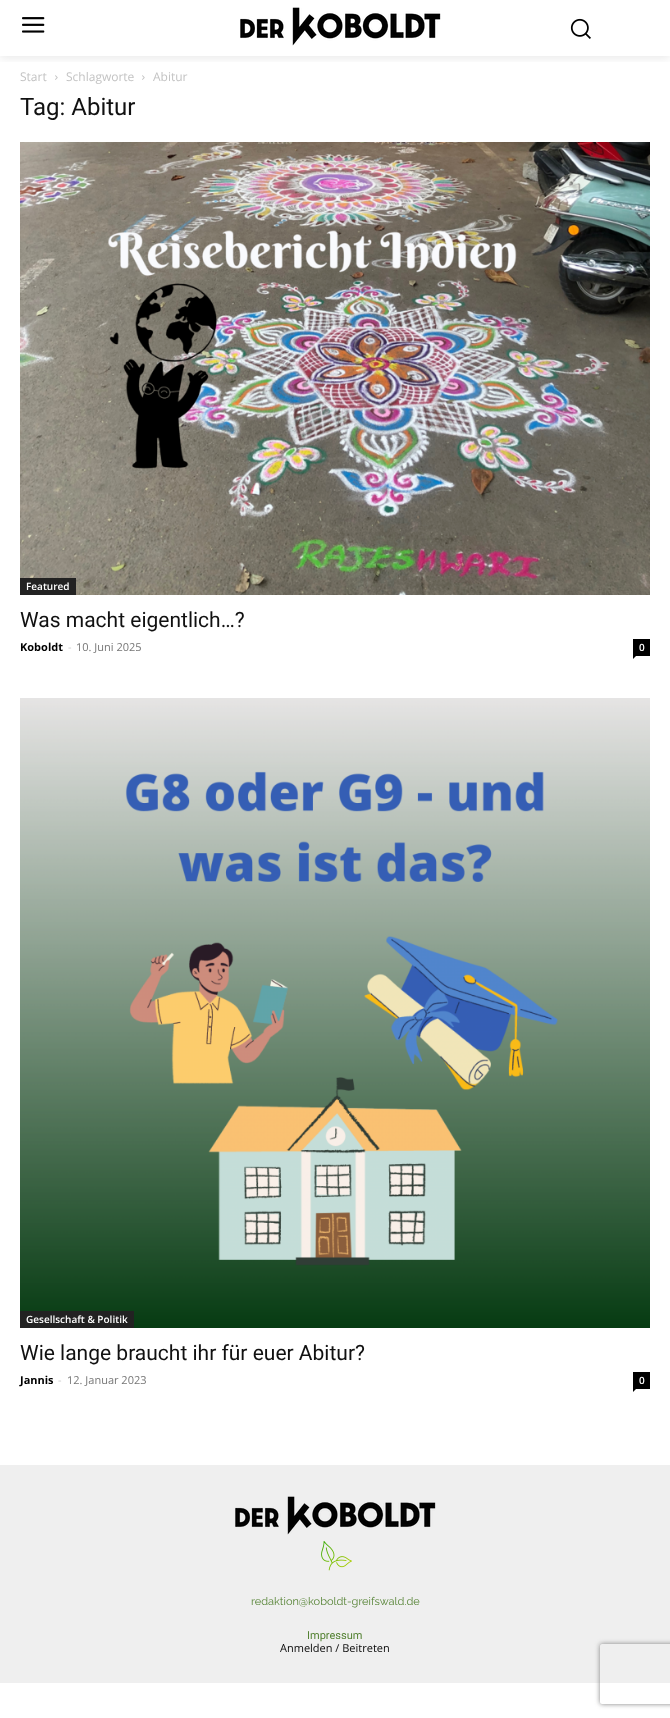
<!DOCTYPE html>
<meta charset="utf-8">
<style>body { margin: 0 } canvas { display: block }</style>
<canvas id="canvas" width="670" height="1718"></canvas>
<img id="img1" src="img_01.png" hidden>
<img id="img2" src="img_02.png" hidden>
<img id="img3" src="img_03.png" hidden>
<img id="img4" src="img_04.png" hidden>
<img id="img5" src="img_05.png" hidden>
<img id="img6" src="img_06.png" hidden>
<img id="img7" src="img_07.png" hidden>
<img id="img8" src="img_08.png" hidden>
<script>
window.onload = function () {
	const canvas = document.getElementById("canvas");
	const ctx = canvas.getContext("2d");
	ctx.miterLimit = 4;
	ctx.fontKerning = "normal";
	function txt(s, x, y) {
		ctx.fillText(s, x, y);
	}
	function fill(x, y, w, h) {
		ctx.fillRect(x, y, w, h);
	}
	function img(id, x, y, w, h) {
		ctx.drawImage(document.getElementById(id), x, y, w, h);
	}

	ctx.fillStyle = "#FFFFFF";
	fill(0, 0, 670, 1718);
	img("img1", 22, 17, 23, 16);
	img("img2", 240, 7, 201, 39);
	img("img3", 570, 18, 21, 21);
	ctx.save();
	ctx.beginPath();
	ctx.rect(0, 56, 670, 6);
	ctx.clip();
	ctx.fillStyle = "rgba(0, 0, 0, 0.09)";
	ctx.filter = "blur(5px)";
	ctx.beginPath();
	ctx.rect(0, 2, 670, 56);
	ctx.fill();
	ctx.filter = "none";
	ctx.restore();
	img("img4", 55, 75, 3, 5);
	img("img4", 142, 75, 3, 5);
	img("img5", 20, 142, 630, 453);
	ctx.fillStyle = "#222222";
	fill(20, 578, 56, 17);
	ctx.fillStyle = "#000000";
	fill(633, 639, 17, 17);
	ctx.beginPath();
	ctx.moveTo(633, 656);
	ctx.lineTo(636, 656);
	ctx.lineTo(633, 659);
	ctx.closePath();
	ctx.fill();
	img("img6", 20, 698, 630, 630);
	ctx.fillStyle = "#222222";
	fill(20, 1311, 114, 17);
	ctx.fillStyle = "#000000";
	fill(633, 1372, 17, 17);
	ctx.beginPath();
	ctx.moveTo(633, 1389);
	ctx.lineTo(636, 1389);
	ctx.lineTo(633, 1392);
	ctx.closePath();
	ctx.fill();
	ctx.fillStyle = "#EFEFEF";
	fill(0, 1465, 670, 218);
	img("img7", 235, 1496, 201, 39);
	img("img8", 321, 1541, 31, 30);
	ctx.save();
	ctx.beginPath();
	ctx.moveTo(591, 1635);
	ctx.lineTo(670, 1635);
	ctx.lineTo(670, 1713);
	ctx.lineTo(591, 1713);
	ctx.closePath();
	ctx.moveTo(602, 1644);
	ctx.lineTo(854, 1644);
	ctx.bezierCurveTo(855, 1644, 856, 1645, 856, 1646);
	ctx.lineTo(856, 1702);
	ctx.bezierCurveTo(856, 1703, 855, 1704, 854, 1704);
	ctx.lineTo(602, 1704);
	ctx.bezierCurveTo(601, 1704, 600, 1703, 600, 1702);
	ctx.lineTo(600, 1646);
	ctx.bezierCurveTo(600, 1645, 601, 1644, 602, 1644);
	ctx.closePath();
	ctx.clip("evenodd");
	ctx.fillStyle = "#808080";
	ctx.filter = "blur(2.5px)";
	ctx.beginPath();
	ctx.roundRect(600, 1644, 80, 60, 2);
	ctx.fill();
	ctx.filter = "none";
	ctx.restore();
	ctx.font = "12px Open Sans";
	ctx.fillStyle = "#C3C3C3";
	txt("Start", 20, 81);
	txt("Schlagworte", 66, 81);
	txt("Abitur", 153, 81);
	ctx.font = "24px Roboto";
	ctx.fillStyle = "#111111";
	txt("Tag: Abitur", 20, 115);
	ctx.font = "600 10px Open Sans";
	ctx.fillStyle = "#FFFFFF";
	txt("Featured", 26, 590);
	ctx.font = "21px Roboto";
	ctx.fillStyle = "#111111";
	txt("Was macht eigentlich…?", 20, 627);
	ctx.font = "bold 11px Open Sans";
	ctx.fillStyle = "#000000";
	txt("Koboldt", 20, 651);
	ctx.font = "11px Open Sans";
	ctx.fillStyle = "#CCCCCC";
	txt("-", 68, 651);
	ctx.fillStyle = "#767676";
	txt("10. Juni 2025", 76, 651);
	ctx.font = "600 10px Open Sans";
	ctx.fillStyle = "#FFFFFF";
	txt("0", 639, 651);
	txt("Gesellschaft & Politik", 26, 1323);
	ctx.font = "21px Roboto";
	ctx.fillStyle = "#111111";
	txt("Wie lange braucht ihr für euer Abitur?", 20, 1360);
	ctx.font = "bold 11px Open Sans";
	ctx.fillStyle = "#000000";
	txt("Jannis", 20, 1384);
	ctx.font = "11px Open Sans";
	ctx.fillStyle = "#CCCCCC";
	txt("-", 58, 1384);
	ctx.fillStyle = "#767676";
	txt("12. Januar 2023", 67, 1384);
	ctx.font = "600 10px Open Sans";
	ctx.fillStyle = "#FFFFFF";
	txt("0", 639, 1384);
	ctx.font = "100 11px Raleway";
	ctx.fillStyle = "#548233";
	txt("redaktion@koboldt-greifswald.de", 251, 1605);
	ctx.font = "11px Roboto";
	txt("Impressum", 307, 1639);
	ctx.font = "11px Open Sans";
	ctx.fillStyle = "#0A0A0A";
	txt("Anmelden / Beitreten", 280, 1652);
};
</script>
